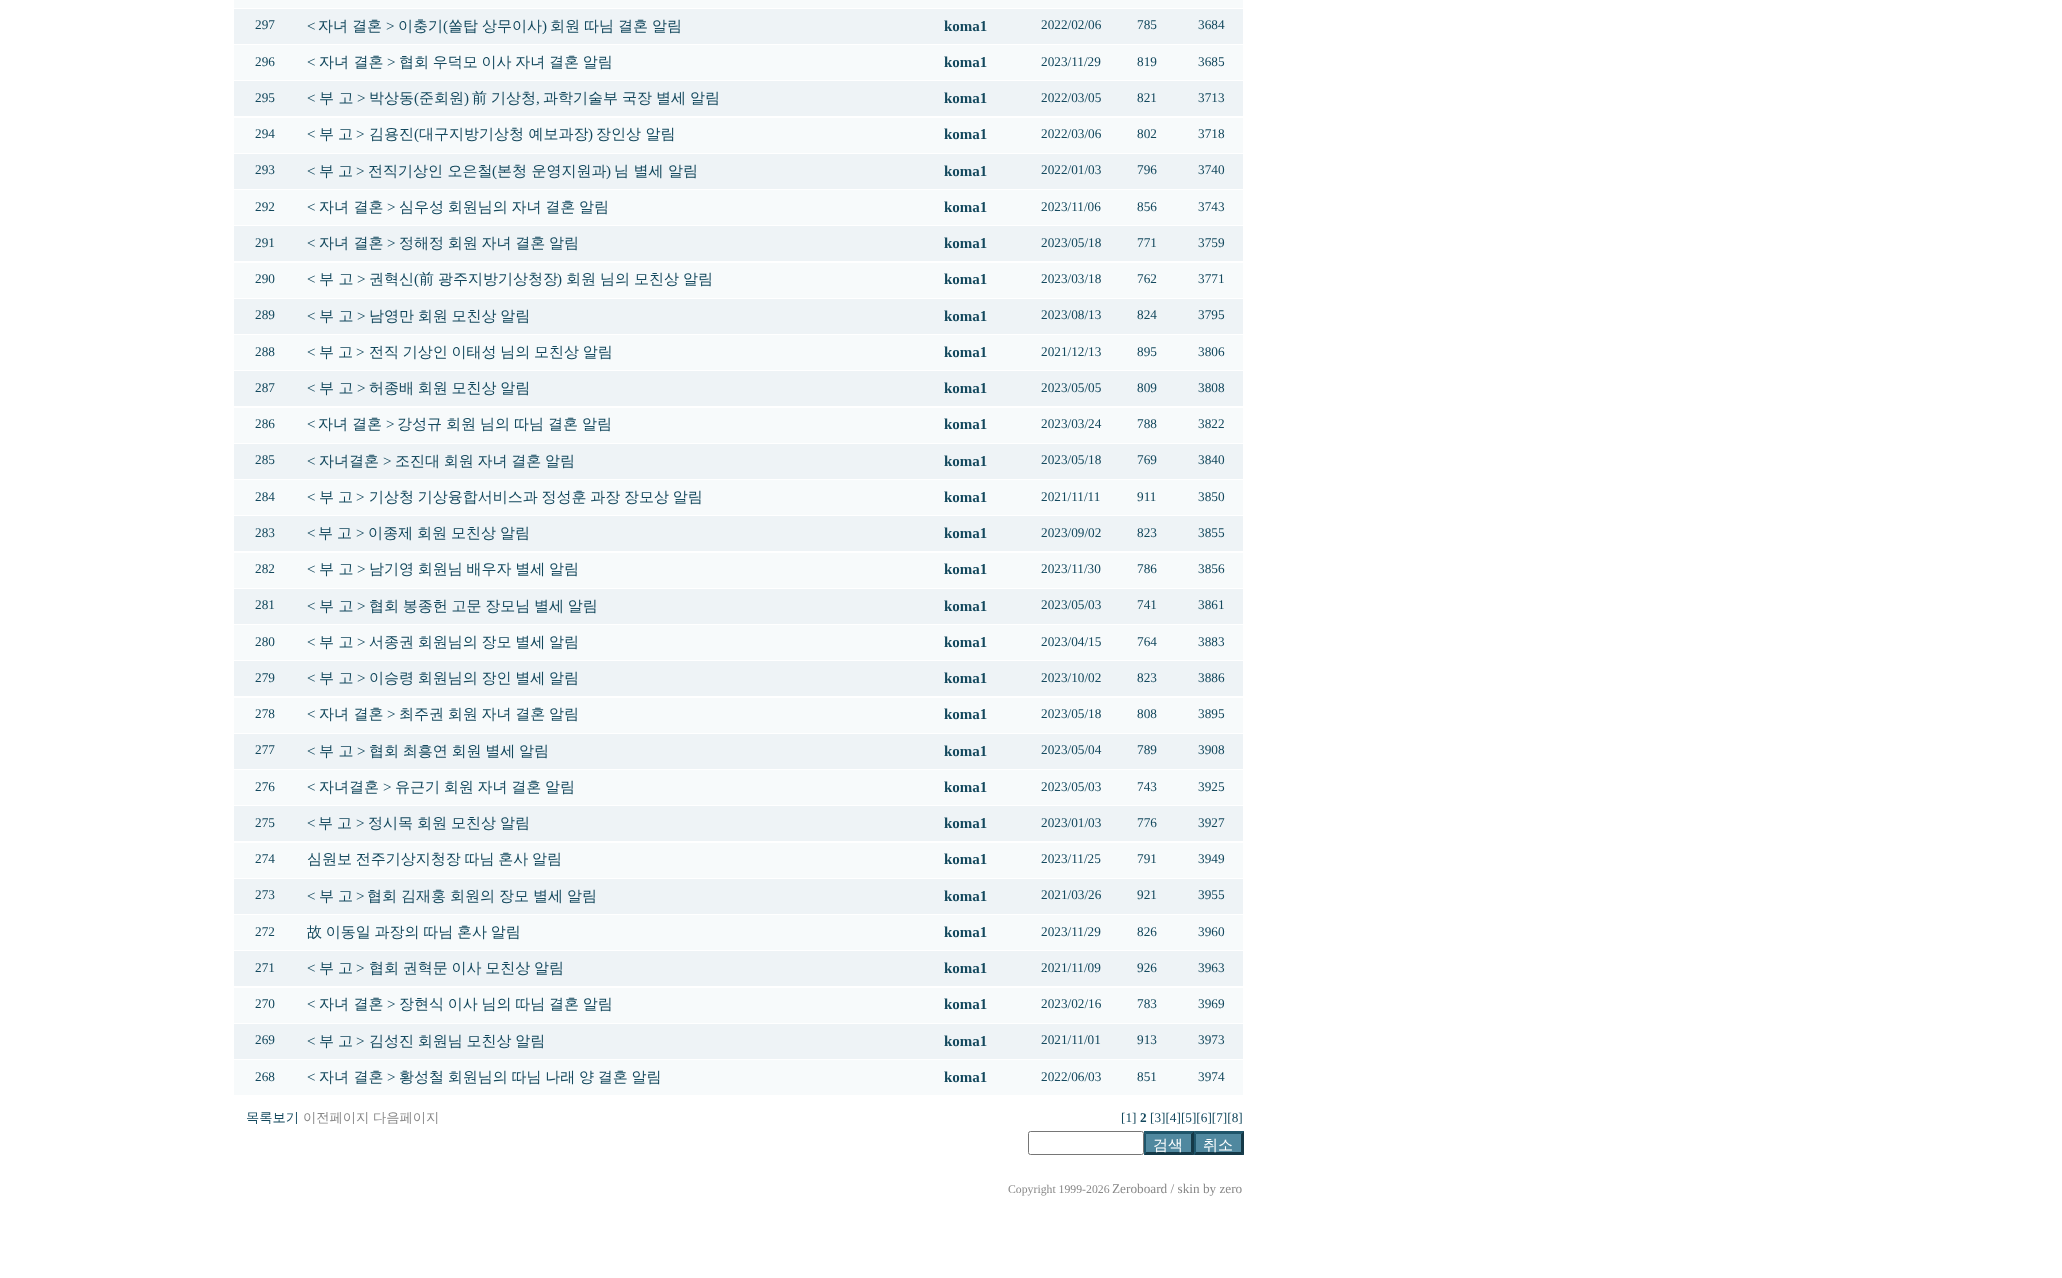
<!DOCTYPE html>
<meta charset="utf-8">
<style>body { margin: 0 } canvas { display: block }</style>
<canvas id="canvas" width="2062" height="1278"></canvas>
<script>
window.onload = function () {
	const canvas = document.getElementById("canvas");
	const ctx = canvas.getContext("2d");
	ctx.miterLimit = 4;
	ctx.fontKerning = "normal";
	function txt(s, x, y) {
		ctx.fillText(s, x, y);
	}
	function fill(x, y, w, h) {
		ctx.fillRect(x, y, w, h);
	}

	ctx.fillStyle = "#FFFFFF";
	fill(0, 0, 2062, 1278);
	ctx.fillStyle = "#F7FAFB";
	fill(234, 0, 1009, 8);
	ctx.fillStyle = "#EEF3F6";
	fill(234, 9, 1009, 35);
	ctx.fillStyle = "#F7FAFB";
	fill(234, 45, 1009, 35);
	ctx.fillStyle = "#EEF3F6";
	fill(234, 81, 1009, 35);
	ctx.fillStyle = "#F7FAFB";
	fill(234, 118, 1009, 35);
	ctx.fillStyle = "#EEF3F6";
	fill(234, 154, 1009, 35);
	ctx.fillStyle = "#F7FAFB";
	fill(234, 190, 1009, 35);
	ctx.fillStyle = "#EEF3F6";
	fill(234, 226, 1009, 35);
	ctx.fillStyle = "#F7FAFB";
	fill(234, 263, 1009, 35);
	ctx.fillStyle = "#EEF3F6";
	fill(234, 299, 1009, 35);
	ctx.fillStyle = "#F7FAFB";
	fill(234, 335, 1009, 35);
	ctx.fillStyle = "#EEF3F6";
	fill(234, 371, 1009, 35);
	ctx.fillStyle = "#F7FAFB";
	fill(234, 408, 1009, 35);
	ctx.fillStyle = "#EEF3F6";
	fill(234, 444, 1009, 35);
	ctx.fillStyle = "#F7FAFB";
	fill(234, 480, 1009, 35);
	ctx.fillStyle = "#EEF3F6";
	fill(234, 516, 1009, 35);
	ctx.fillStyle = "#F7FAFB";
	fill(234, 553, 1009, 35);
	ctx.fillStyle = "#EEF3F6";
	fill(234, 589, 1009, 35);
	ctx.fillStyle = "#F7FAFB";
	fill(234, 625, 1009, 35);
	ctx.fillStyle = "#EEF3F6";
	fill(234, 661, 1009, 35);
	ctx.fillStyle = "#F7FAFB";
	fill(234, 698, 1009, 35);
	ctx.fillStyle = "#EEF3F6";
	fill(234, 734, 1009, 35);
	ctx.fillStyle = "#F7FAFB";
	fill(234, 770, 1009, 35);
	ctx.fillStyle = "#EEF3F6";
	fill(234, 806, 1009, 35);
	ctx.fillStyle = "#F7FAFB";
	fill(234, 843, 1009, 35);
	ctx.fillStyle = "#EEF3F6";
	fill(234, 879, 1009, 35);
	ctx.fillStyle = "#F7FAFB";
	fill(234, 915, 1009, 35);
	ctx.fillStyle = "#EEF3F6";
	fill(234, 951, 1009, 35);
	ctx.fillStyle = "#F7FAFB";
	fill(234, 988, 1009, 35);
	ctx.fillStyle = "#EEF3F6";
	fill(234, 1024, 1009, 35);
	ctx.fillStyle = "#F7FAFB";
	fill(234, 1060, 1009, 35);
	ctx.beginPath();
	ctx.roundRect(1028.5, 1131.5, 115, 23, 2);
	ctx.strokeStyle = "#767676";
	ctx.stroke();
	ctx.fillStyle = "#50889F";
	fill(1144, 1131, 100, 24);
	ctx.fillStyle = "#1F556A";
	ctx.beginPath();
	ctx.moveTo(1144, 1131);
	ctx.lineTo(1194, 1131);
	ctx.lineTo(1191, 1134);
	ctx.lineTo(1146, 1134);
	ctx.closePath();
	ctx.fill();
	ctx.fillStyle = "#153947";
	ctx.beginPath();
	ctx.moveTo(1194, 1131);
	ctx.lineTo(1194, 1155);
	ctx.lineTo(1191, 1152.5);
	ctx.lineTo(1191, 1134);
	ctx.closePath();
	ctx.fill();
	ctx.beginPath();
	ctx.moveTo(1194, 1155);
	ctx.lineTo(1144, 1155);
	ctx.lineTo(1146, 1152);
	ctx.lineTo(1191, 1152);
	ctx.closePath();
	ctx.fill();
	ctx.fillStyle = "#1F556A";
	ctx.beginPath();
	ctx.moveTo(1144, 1155);
	ctx.lineTo(1144, 1131);
	ctx.lineTo(1146, 1134);
	ctx.lineTo(1146, 1152.5);
	ctx.closePath();
	ctx.fill();
	ctx.beginPath();
	ctx.moveTo(1194, 1131);
	ctx.lineTo(1244, 1131);
	ctx.lineTo(1241, 1134);
	ctx.lineTo(1196, 1134);
	ctx.closePath();
	ctx.fill();
	ctx.fillStyle = "#153947";
	ctx.beginPath();
	ctx.moveTo(1244, 1131);
	ctx.lineTo(1244, 1155);
	ctx.lineTo(1241, 1152.5);
	ctx.lineTo(1241, 1134);
	ctx.closePath();
	ctx.fill();
	ctx.beginPath();
	ctx.moveTo(1244, 1155);
	ctx.lineTo(1194, 1155);
	ctx.lineTo(1196, 1152);
	ctx.lineTo(1241, 1152);
	ctx.closePath();
	ctx.fill();
	ctx.fillStyle = "#1F556A";
	ctx.beginPath();
	ctx.moveTo(1194, 1155);
	ctx.lineTo(1194, 1131);
	ctx.lineTo(1196, 1134);
	ctx.lineTo(1196, 1152.5);
	ctx.closePath();
	ctx.fill();
	ctx.font = "13.25px Liberation Serif";
	ctx.fillStyle = "#13485D";
	txt("297", 255, 29);
	ctx.font = "15px Liberation Serif";
	txt("<", 307, 31);
	ctx.wordSpacing = "-0.5px";
	ctx.font = "500 15px WenQuanYi Zen Hei";
	txt("자녀 결혼", 318, 31);
	ctx.wordSpacing = "0px";
	ctx.font = "15px Liberation Serif";
	txt(">", 386, 31);
	ctx.font = "500 15px WenQuanYi Zen Hei";
	txt("이충기", 398, 31);
	ctx.font = "15px Liberation Serif";
	txt("(", 443, 31);
	ctx.wordSpacing = "-0.5px";
	ctx.font = "500 15px WenQuanYi Zen Hei";
	txt("쏠탑 상무이사", 448, 31);
	ctx.wordSpacing = "0px";
	ctx.font = "15px Liberation Serif";
	txt(")", 542, 31);
	ctx.wordSpacing = "-0.5px";
	ctx.font = "500 15px WenQuanYi Zen Hei";
	txt("회원 따님 결혼 알림", 550, 31);
	ctx.wordSpacing = "0px";
	ctx.font = "bold 15px Liberation Serif";
	txt("koma1", 944, 31);
	ctx.font = "13.25px Liberation Serif";
	txt("2022/02/06", 1041, 29);
	txt("785", 1137, 29);
	txt("3684", 1198, 29);
	txt("296", 255, 66);
	ctx.font = "15px Liberation Serif";
	txt("<", 307, 67);
	ctx.font = "500 15px WenQuanYi Zen Hei";
	txt("자녀 결혼", 319, 67);
	ctx.font = "15px Liberation Serif";
	txt(">", 387, 67);
	ctx.wordSpacing = "-0.75px";
	ctx.font = "500 15px WenQuanYi Zen Hei";
	txt("협회 우덕모 이사 자녀 결혼 알림", 399, 67);
	ctx.wordSpacing = "0px";
	ctx.font = "bold 15px Liberation Serif";
	txt("koma1", 944, 67);
	ctx.font = "13.25px Liberation Serif";
	txt("2023/11/29", 1041, 66);
	txt("819", 1137, 66);
	txt("3685", 1198, 66);
	txt("295", 255, 102);
	ctx.font = "15px Liberation Serif";
	txt("<", 307, 103);
	ctx.font = "500 15px WenQuanYi Zen Hei";
	txt("부 고", 319, 103);
	ctx.font = "15px Liberation Serif";
	txt(">", 357, 103);
	ctx.font = "500 15px WenQuanYi Zen Hei";
	txt("박상동", 369, 103);
	ctx.font = "15px Liberation Serif";
	txt("(", 414, 103);
	ctx.font = "500 15px WenQuanYi Zen Hei";
	txt("준회원", 419, 103);
	ctx.font = "15px Liberation Serif";
	txt(")", 464, 103);
	ctx.wordSpacing = "-0.5px";
	ctx.font = "500 15px WenQuanYi Zen Hei";
	txt("前 기상청", 472, 103);
	txt("과학기술부 국장 별세 알림", 543, 103);
	ctx.wordSpacing = "0px";
	ctx.font = "15px Liberation Serif";
	txt(",", 536, 103);
	ctx.font = "bold 15px Liberation Serif";
	txt("koma1", 944, 103);
	ctx.font = "13.25px Liberation Serif";
	txt("2022/03/05", 1041, 102);
	txt("821", 1137, 102);
	txt("3713", 1198, 102);
	txt("294", 255, 138);
	ctx.font = "15px Liberation Serif";
	txt("<", 307, 139);
	ctx.font = "500 15px WenQuanYi Zen Hei";
	txt("부", 319, 139);
	txt("고", 338, 139);
	ctx.font = "15px Liberation Serif";
	txt(">", 356, 139);
	ctx.font = "500 15px WenQuanYi Zen Hei";
	txt("김용진", 369, 139);
	ctx.font = "15px Liberation Serif";
	txt("(", 414, 139);
	ctx.font = "500 15px WenQuanYi Zen Hei";
	txt("대구지방기상청 예보과장", 419, 139);
	ctx.font = "15px Liberation Serif";
	txt(")", 588, 139);
	ctx.font = "500 15px WenQuanYi Zen Hei";
	txt("장인상 알림", 596, 139);
	ctx.font = "bold 15px Liberation Serif";
	txt("koma1", 944, 139);
	ctx.font = "13.25px Liberation Serif";
	txt("2022/03/06", 1041, 138);
	txt("802", 1137, 138);
	txt("3718", 1198, 138);
	txt("293", 255, 174);
	ctx.font = "15px Liberation Serif";
	txt("<", 307, 176);
	ctx.font = "500 15px WenQuanYi Zen Hei";
	txt("부", 319, 176);
	txt("고", 338, 176);
	ctx.font = "15px Liberation Serif";
	txt(">", 356, 176);
	ctx.font = "500 15px WenQuanYi Zen Hei";
	txt("전직기상인 오은철", 368, 176);
	ctx.font = "15px Liberation Serif";
	txt("(", 492, 176);
	ctx.font = "500 15px WenQuanYi Zen Hei";
	txt("본청 운영지원과", 497, 176);
	ctx.font = "15px Liberation Serif";
	txt(")", 606, 176);
	ctx.font = "500 15px WenQuanYi Zen Hei";
	txt("님 별세 알림", 614, 176);
	ctx.font = "bold 15px Liberation Serif";
	txt("koma1", 944, 176);
	ctx.font = "13.25px Liberation Serif";
	txt("2022/01/03", 1041, 174);
	txt("796", 1137, 174);
	txt("3740", 1198, 174);
	txt("292", 255, 211);
	ctx.font = "15px Liberation Serif";
	txt("<", 307, 212);
	ctx.font = "500 15px WenQuanYi Zen Hei";
	txt("자녀 결혼", 319, 212);
	ctx.font = "15px Liberation Serif";
	txt(">", 387, 212);
	ctx.wordSpacing = "-0.75px";
	ctx.font = "500 15px WenQuanYi Zen Hei";
	txt("심우성 회원님의 자녀 결혼 알림", 399, 212);
	ctx.wordSpacing = "0px";
	ctx.font = "bold 15px Liberation Serif";
	txt("koma1", 944, 212);
	ctx.font = "13.25px Liberation Serif";
	txt("2023/11/06", 1041, 211);
	txt("856", 1137, 211);
	txt("3743", 1198, 211);
	txt("291", 255, 247);
	ctx.font = "15px Liberation Serif";
	txt("<", 307, 248);
	ctx.font = "500 15px WenQuanYi Zen Hei";
	txt("자녀 결혼", 319, 248);
	ctx.font = "15px Liberation Serif";
	txt(">", 387, 248);
	ctx.wordSpacing = "-0.75px";
	ctx.font = "500 15px WenQuanYi Zen Hei";
	txt("정해정 회원 자녀 결혼 알림", 399, 248);
	ctx.wordSpacing = "0px";
	ctx.font = "bold 15px Liberation Serif";
	txt("koma1", 944, 248);
	ctx.font = "13.25px Liberation Serif";
	txt("2023/05/18", 1041, 247);
	txt("771", 1137, 247);
	txt("3759", 1198, 247);
	txt("290", 255, 283);
	ctx.font = "15px Liberation Serif";
	txt("<", 307, 284);
	ctx.font = "500 15px WenQuanYi Zen Hei";
	txt("부 고", 319, 284);
	ctx.font = "15px Liberation Serif";
	txt(">", 357, 284);
	ctx.font = "500 15px WenQuanYi Zen Hei";
	txt("권혁신", 369, 284);
	ctx.font = "15px Liberation Serif";
	txt("(", 414, 284);
	ctx.wordSpacing = "-0.5px";
	ctx.font = "500 15px WenQuanYi Zen Hei";
	txt("前 광주지방기상청장", 419, 284);
	ctx.wordSpacing = "0px";
	ctx.font = "15px Liberation Serif";
	txt(")", 557, 284);
	ctx.wordSpacing = "-0.5px";
	ctx.font = "500 15px WenQuanYi Zen Hei";
	txt("회원 님의 모친상 알림", 566, 284);
	ctx.wordSpacing = "0px";
	ctx.font = "bold 15px Liberation Serif";
	txt("koma1", 944, 284);
	ctx.font = "13.25px Liberation Serif";
	txt("2023/03/18", 1041, 283);
	txt("762", 1137, 283);
	txt("3771", 1198, 283);
	txt("289", 255, 319);
	ctx.font = "15px Liberation Serif";
	txt("<", 307, 321);
	ctx.font = "500 15px WenQuanYi Zen Hei";
	txt("부 고", 319, 321);
	ctx.font = "15px Liberation Serif";
	txt(">", 357, 321);
	ctx.wordSpacing = "-0.75px";
	ctx.font = "500 15px WenQuanYi Zen Hei";
	txt("남영만 회원 모친상 알림", 369, 321);
	ctx.wordSpacing = "0px";
	ctx.font = "bold 15px Liberation Serif";
	txt("koma1", 944, 321);
	ctx.font = "13.25px Liberation Serif";
	txt("2023/08/13", 1041, 319);
	txt("824", 1137, 319);
	txt("3795", 1198, 319);
	txt("288", 255, 356);
	ctx.font = "15px Liberation Serif";
	txt("<", 307, 357);
	ctx.font = "500 15px WenQuanYi Zen Hei";
	txt("부", 319, 357);
	txt("고", 338, 357);
	ctx.font = "15px Liberation Serif";
	txt(">", 356, 357);
	ctx.wordSpacing = "-0.75px";
	ctx.font = "500 15px WenQuanYi Zen Hei";
	txt("전직 기상인 이태성 님의 모친상 알림", 369, 357);
	ctx.wordSpacing = "0px";
	ctx.font = "bold 15px Liberation Serif";
	txt("koma1", 944, 357);
	ctx.font = "13.25px Liberation Serif";
	txt("2021/12/13", 1041, 356);
	txt("895", 1137, 356);
	txt("3806", 1198, 356);
	txt("287", 255, 392);
	ctx.font = "15px Liberation Serif";
	txt("<", 307, 393);
	ctx.font = "500 15px WenQuanYi Zen Hei";
	txt("부 고", 319, 393);
	ctx.font = "15px Liberation Serif";
	txt(">", 357, 393);
	ctx.wordSpacing = "-0.75px";
	ctx.font = "500 15px WenQuanYi Zen Hei";
	txt("허종배 회원 모친상 알림", 369, 393);
	ctx.wordSpacing = "0px";
	ctx.font = "bold 15px Liberation Serif";
	txt("koma1", 944, 393);
	ctx.font = "13.25px Liberation Serif";
	txt("2023/05/05", 1041, 392);
	txt("809", 1137, 392);
	txt("3808", 1198, 392);
	txt("286", 255, 428);
	ctx.font = "15px Liberation Serif";
	txt("<", 307, 429);
	ctx.wordSpacing = "-0.5px";
	ctx.font = "500 15px WenQuanYi Zen Hei";
	txt("자녀 결혼", 318, 429);
	ctx.wordSpacing = "0px";
	ctx.font = "15px Liberation Serif";
	txt(">", 386, 429);
	ctx.wordSpacing = "-0.5px";
	ctx.font = "500 15px WenQuanYi Zen Hei";
	txt("강성규 회원 님의 따님 결혼 알림", 397, 429);
	ctx.wordSpacing = "0px";
	ctx.font = "bold 15px Liberation Serif";
	txt("koma1", 944, 429);
	ctx.font = "13.25px Liberation Serif";
	txt("2023/03/24", 1041, 428);
	txt("788", 1137, 428);
	txt("3822", 1198, 428);
	txt("285", 255, 464);
	ctx.font = "15px Liberation Serif";
	txt("<", 307, 466);
	ctx.font = "500 15px WenQuanYi Zen Hei";
	txt("자녀결혼", 319, 466);
	ctx.font = "15px Liberation Serif";
	txt(">", 383, 466);
	ctx.wordSpacing = "-0.75px";
	ctx.font = "500 15px WenQuanYi Zen Hei";
	txt("조진대 회원 자녀 결혼 알림", 395, 466);
	ctx.wordSpacing = "0px";
	ctx.font = "bold 15px Liberation Serif";
	txt("koma1", 944, 466);
	ctx.font = "13.25px Liberation Serif";
	txt("2023/05/18", 1041, 464);
	txt("769", 1137, 464);
	txt("3840", 1198, 464);
	txt("284", 255, 501);
	ctx.font = "15px Liberation Serif";
	txt("<", 307, 502);
	ctx.font = "500 15px WenQuanYi Zen Hei";
	txt("부", 319, 502);
	txt("고", 338, 502);
	ctx.font = "15px Liberation Serif";
	txt(">", 356, 502);
	ctx.wordSpacing = "-0.75px";
	ctx.font = "500 15px WenQuanYi Zen Hei";
	txt("기상청 기상융합서비스과 정성훈 과장 장모상 알림", 369, 502);
	ctx.wordSpacing = "0px";
	ctx.font = "bold 15px Liberation Serif";
	txt("koma1", 944, 502);
	ctx.font = "13.25px Liberation Serif";
	txt("2021/11/11", 1041, 501);
	txt("911", 1137, 501);
	txt("3850", 1198, 501);
	txt("283", 255, 537);
	ctx.font = "15px Liberation Serif";
	txt("<", 307, 538);
	ctx.wordSpacing = "-0.5px";
	ctx.font = "500 15px WenQuanYi Zen Hei";
	txt("부 고", 318, 538);
	ctx.wordSpacing = "0px";
	ctx.font = "15px Liberation Serif";
	txt(">", 356, 538);
	ctx.wordSpacing = "-0.5px";
	ctx.font = "500 15px WenQuanYi Zen Hei";
	txt("이종제 회원 모친상 알림", 368, 538);
	ctx.wordSpacing = "0px";
	ctx.font = "bold 15px Liberation Serif";
	txt("koma1", 944, 538);
	ctx.font = "13.25px Liberation Serif";
	txt("2023/09/02", 1041, 537);
	txt("823", 1137, 537);
	txt("3855", 1198, 537);
	txt("282", 255, 573);
	ctx.font = "15px Liberation Serif";
	txt("<", 307, 574);
	ctx.font = "500 15px WenQuanYi Zen Hei";
	txt("부 고", 319, 574);
	ctx.font = "15px Liberation Serif";
	txt(">", 357, 574);
	ctx.wordSpacing = "-0.75px";
	ctx.font = "500 15px WenQuanYi Zen Hei";
	txt("남기영 회원님 배우자 별세 알림", 369, 574);
	ctx.wordSpacing = "0px";
	ctx.font = "bold 15px Liberation Serif";
	txt("koma1", 944, 574);
	ctx.font = "13.25px Liberation Serif";
	txt("2023/11/30", 1041, 573);
	txt("786", 1137, 573);
	txt("3856", 1198, 573);
	txt("281", 255, 609);
	ctx.font = "15px Liberation Serif";
	txt("<", 307, 611);
	ctx.font = "500 15px WenQuanYi Zen Hei";
	txt("부 고", 319, 611);
	ctx.font = "15px Liberation Serif";
	txt(">", 357, 611);
	ctx.wordSpacing = "-0.75px";
	ctx.font = "500 15px WenQuanYi Zen Hei";
	txt("협회 봉종헌 고문 장모님 별세 알림", 369, 611);
	ctx.wordSpacing = "0px";
	ctx.font = "bold 15px Liberation Serif";
	txt("koma1", 944, 611);
	ctx.font = "13.25px Liberation Serif";
	txt("2023/05/03", 1041, 609);
	txt("741", 1137, 609);
	txt("3861", 1198, 609);
	txt("280", 255, 646);
	ctx.font = "15px Liberation Serif";
	txt("<", 307, 647);
	ctx.font = "500 15px WenQuanYi Zen Hei";
	txt("부 고", 319, 647);
	ctx.font = "15px Liberation Serif";
	txt(">", 357, 647);
	ctx.wordSpacing = "-0.75px";
	ctx.font = "500 15px WenQuanYi Zen Hei";
	txt("서종권 회원님의 장모 별세 알림", 369, 647);
	ctx.wordSpacing = "0px";
	ctx.font = "bold 15px Liberation Serif";
	txt("koma1", 944, 647);
	ctx.font = "13.25px Liberation Serif";
	txt("2023/04/15", 1041, 646);
	txt("764", 1137, 646);
	txt("3883", 1198, 646);
	txt("279", 255, 682);
	ctx.font = "15px Liberation Serif";
	txt("<", 307, 683);
	ctx.font = "500 15px WenQuanYi Zen Hei";
	txt("부 고", 319, 683);
	ctx.font = "15px Liberation Serif";
	txt(">", 357, 683);
	ctx.wordSpacing = "-0.75px";
	ctx.font = "500 15px WenQuanYi Zen Hei";
	txt("이승령 회원님의 장인 별세 알림", 369, 683);
	ctx.wordSpacing = "0px";
	ctx.font = "bold 15px Liberation Serif";
	txt("koma1", 944, 683);
	ctx.font = "13.25px Liberation Serif";
	txt("2023/10/02", 1041, 682);
	txt("823", 1137, 682);
	txt("3886", 1198, 682);
	txt("278", 255, 718);
	ctx.font = "15px Liberation Serif";
	txt("<", 307, 719);
	ctx.font = "500 15px WenQuanYi Zen Hei";
	txt("자녀 결혼", 319, 719);
	ctx.font = "15px Liberation Serif";
	txt(">", 387, 719);
	ctx.wordSpacing = "-0.75px";
	ctx.font = "500 15px WenQuanYi Zen Hei";
	txt("최주권 회원 자녀 결혼 알림", 399, 719);
	ctx.wordSpacing = "0px";
	ctx.font = "bold 15px Liberation Serif";
	txt("koma1", 944, 719);
	ctx.font = "13.25px Liberation Serif";
	txt("2023/05/18", 1041, 718);
	txt("808", 1137, 718);
	txt("3895", 1198, 718);
	txt("277", 255, 754);
	ctx.font = "15px Liberation Serif";
	txt("<", 307, 756);
	ctx.font = "500 15px WenQuanYi Zen Hei";
	txt("부 고", 319, 756);
	ctx.font = "15px Liberation Serif";
	txt(">", 357, 756);
	ctx.wordSpacing = "-0.75px";
	ctx.font = "500 15px WenQuanYi Zen Hei";
	txt("협회 최흥연 회원 별세 알림", 369, 756);
	ctx.wordSpacing = "0px";
	ctx.font = "bold 15px Liberation Serif";
	txt("koma1", 944, 756);
	ctx.font = "13.25px Liberation Serif";
	txt("2023/05/04", 1041, 754);
	txt("789", 1137, 754);
	txt("3908", 1198, 754);
	txt("276", 255, 791);
	ctx.font = "15px Liberation Serif";
	txt("<", 307, 792);
	ctx.font = "500 15px WenQuanYi Zen Hei";
	txt("자녀결혼", 319, 792);
	ctx.font = "15px Liberation Serif";
	txt(">", 383, 792);
	ctx.wordSpacing = "-0.75px";
	ctx.font = "500 15px WenQuanYi Zen Hei";
	txt("유근기 회원 자녀 결혼 알림", 395, 792);
	ctx.wordSpacing = "0px";
	ctx.font = "bold 15px Liberation Serif";
	txt("koma1", 944, 792);
	ctx.font = "13.25px Liberation Serif";
	txt("2023/05/03", 1041, 791);
	txt("743", 1137, 791);
	txt("3925", 1198, 791);
	txt("275", 255, 827);
	ctx.font = "15px Liberation Serif";
	txt("<", 307, 828);
	ctx.wordSpacing = "-0.5px";
	ctx.font = "500 15px WenQuanYi Zen Hei";
	txt("부 고", 318, 828);
	ctx.wordSpacing = "0px";
	ctx.font = "15px Liberation Serif";
	txt(">", 356, 828);
	ctx.wordSpacing = "-0.5px";
	ctx.font = "500 15px WenQuanYi Zen Hei";
	txt("정시목 회원 모친상 알림", 368, 828);
	ctx.wordSpacing = "0px";
	ctx.font = "bold 15px Liberation Serif";
	txt("koma1", 944, 828);
	ctx.font = "13.25px Liberation Serif";
	txt("2023/01/03", 1041, 827);
	txt("776", 1137, 827);
	txt("3927", 1198, 827);
	txt("274", 255, 863);
	ctx.wordSpacing = "-0.75px";
	ctx.font = "500 15px WenQuanYi Zen Hei";
	txt("심원보 전주기상지청장 따님 혼사 알림", 307, 864);
	ctx.wordSpacing = "0px";
	ctx.font = "bold 15px Liberation Serif";
	txt("koma1", 944, 864);
	ctx.font = "13.25px Liberation Serif";
	txt("2023/11/25", 1041, 863);
	txt("791", 1137, 863);
	txt("3949", 1198, 863);
	txt("273", 255, 899);
	ctx.font = "15px Liberation Serif";
	txt("<", 307, 901);
	ctx.font = "500 15px WenQuanYi Zen Hei";
	txt("부", 319, 901);
	txt("고", 338, 901);
	ctx.font = "15px Liberation Serif";
	txt(">", 356, 901);
	ctx.wordSpacing = "-0.5px";
	ctx.font = "500 15px WenQuanYi Zen Hei";
	txt("협회 김재홍 회원의 장모 별세 알림", 367, 901);
	ctx.wordSpacing = "0px";
	ctx.font = "bold 15px Liberation Serif";
	txt("koma1", 944, 901);
	ctx.font = "13.25px Liberation Serif";
	txt("2021/03/26", 1041, 899);
	txt("921", 1137, 899);
	txt("3955", 1198, 899);
	txt("272", 255, 936);
	ctx.wordSpacing = "-0.75px";
	ctx.font = "500 15px WenQuanYi Zen Hei";
	txt("故 이동일 과장의 따님 혼사 알림", 307, 937);
	ctx.wordSpacing = "0px";
	ctx.font = "bold 15px Liberation Serif";
	txt("koma1", 944, 937);
	ctx.font = "13.25px Liberation Serif";
	txt("2023/11/29", 1041, 936);
	txt("826", 1137, 936);
	txt("3960", 1198, 936);
	txt("271", 255, 972);
	ctx.font = "15px Liberation Serif";
	txt("<", 307, 973);
	ctx.font = "500 15px WenQuanYi Zen Hei";
	txt("부", 319, 973);
	txt("고", 338, 973);
	ctx.font = "15px Liberation Serif";
	txt(">", 356, 973);
	ctx.wordSpacing = "-0.75px";
	ctx.font = "500 15px WenQuanYi Zen Hei";
	txt("협회 권혁문 이사 모친상 알림", 369, 973);
	ctx.wordSpacing = "0px";
	ctx.font = "bold 15px Liberation Serif";
	txt("koma1", 944, 973);
	ctx.font = "13.25px Liberation Serif";
	txt("2021/11/09", 1041, 972);
	txt("926", 1137, 972);
	txt("3963", 1198, 972);
	txt("270", 255, 1008);
	ctx.font = "15px Liberation Serif";
	txt("<", 307, 1009);
	ctx.font = "500 15px WenQuanYi Zen Hei";
	txt("자녀 결혼", 319, 1009);
	ctx.font = "15px Liberation Serif";
	txt(">", 387, 1009);
	ctx.wordSpacing = "-0.75px";
	ctx.font = "500 15px WenQuanYi Zen Hei";
	txt("장현식 이사 님의 따님 결혼 알림", 399, 1009);
	ctx.wordSpacing = "0px";
	ctx.font = "bold 15px Liberation Serif";
	txt("koma1", 944, 1009);
	ctx.font = "13.25px Liberation Serif";
	txt("2023/02/16", 1041, 1008);
	txt("783", 1137, 1008);
	txt("3969", 1198, 1008);
	txt("269", 255, 1044);
	ctx.font = "15px Liberation Serif";
	txt("<", 307, 1046);
	ctx.font = "500 15px WenQuanYi Zen Hei";
	txt("부", 319, 1046);
	txt("고", 338, 1046);
	ctx.font = "15px Liberation Serif";
	txt(">", 356, 1046);
	ctx.wordSpacing = "-0.75px";
	ctx.font = "500 15px WenQuanYi Zen Hei";
	txt("김성진 회원님 모친상 알림", 369, 1046);
	ctx.wordSpacing = "0px";
	ctx.font = "bold 15px Liberation Serif";
	txt("koma1", 944, 1046);
	ctx.font = "13.25px Liberation Serif";
	txt("2021/11/01", 1041, 1044);
	txt("913", 1137, 1044);
	txt("3973", 1198, 1044);
	txt("268", 255, 1081);
	ctx.font = "15px Liberation Serif";
	txt("<", 307, 1082);
	ctx.font = "500 15px WenQuanYi Zen Hei";
	txt("자녀 결혼", 319, 1082);
	ctx.font = "15px Liberation Serif";
	txt(">", 387, 1082);
	ctx.wordSpacing = "-0.75px";
	ctx.font = "500 15px WenQuanYi Zen Hei";
	txt("황성철 회원님의 따님 나래 양 결혼 알림", 399, 1082);
	ctx.wordSpacing = "0px";
	ctx.font = "bold 15px Liberation Serif";
	txt("koma1", 944, 1082);
	ctx.font = "13.25px Liberation Serif";
	txt("2022/06/03", 1041, 1081);
	txt("851", 1137, 1081);
	txt("3974", 1198, 1081);
	ctx.font = "500 13.25px WenQuanYi Zen Hei";
	txt("목록보기", 246, 1122);
	ctx.fillStyle = "#888888";
	txt("이전페이지", 303, 1122);
	txt("다음페이지", 373, 1122);
	ctx.font = "13.25px Liberation Serif";
	ctx.fillStyle = "#13485D";
	txt("[1]", 1121, 1122);
	ctx.font = "bold 13.25px Liberation Serif";
	txt("2", 1140, 1122);
	ctx.font = "13.25px Liberation Serif";
	txt("[3][4][5][6][7][8]", 1150, 1122);
	ctx.font = "500 15px WenQuanYi Zen Hei";
	ctx.fillStyle = "#FFFFFF";
	txt("검색", 1153, 1150);
	txt("취소", 1203, 1150);
	ctx.font = "11.75px Liberation Serif";
	ctx.fillStyle = "#888888";
	txt("Copyright 1999-2026", 1008, 1193);
	ctx.font = "13.25px Liberation Serif";
	txt("Zeroboard / skin by zero", 1112, 1193);
};
</script>
